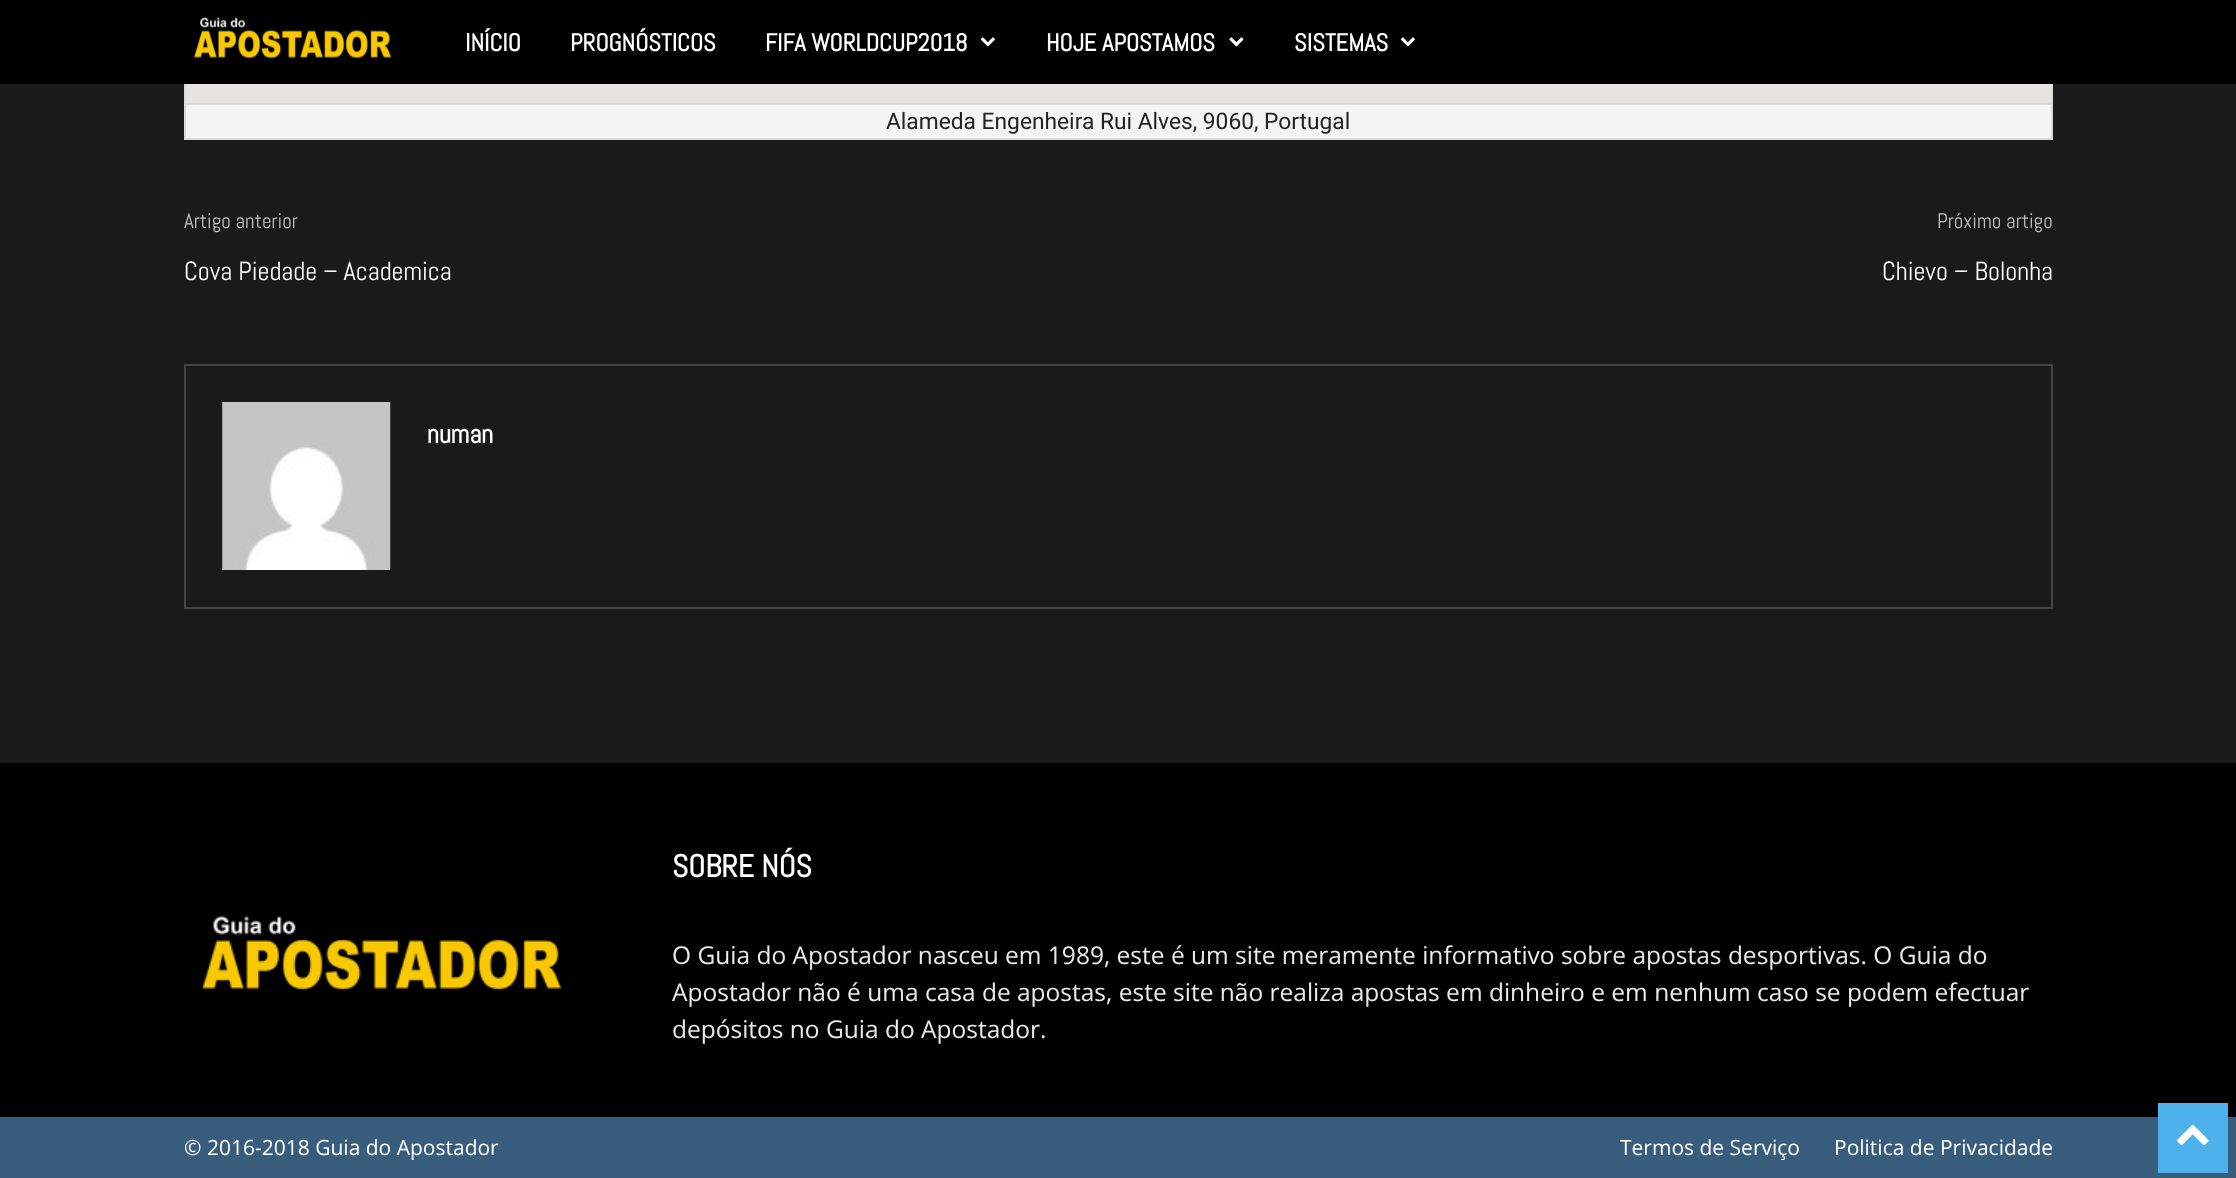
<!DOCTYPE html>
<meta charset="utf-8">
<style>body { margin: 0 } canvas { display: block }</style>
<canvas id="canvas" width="2236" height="1178"></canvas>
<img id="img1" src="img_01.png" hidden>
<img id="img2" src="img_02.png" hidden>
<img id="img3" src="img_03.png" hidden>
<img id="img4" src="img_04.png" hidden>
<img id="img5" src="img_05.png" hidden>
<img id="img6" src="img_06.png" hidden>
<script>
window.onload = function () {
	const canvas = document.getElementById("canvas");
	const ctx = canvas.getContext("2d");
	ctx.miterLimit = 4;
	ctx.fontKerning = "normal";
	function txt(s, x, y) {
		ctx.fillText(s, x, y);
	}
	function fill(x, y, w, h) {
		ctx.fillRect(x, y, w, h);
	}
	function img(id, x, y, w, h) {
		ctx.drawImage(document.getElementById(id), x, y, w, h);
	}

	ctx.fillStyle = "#1A1A1A";
	fill(0, 0, 2236, 1178);
	ctx.fillStyle = "#000000";
	fill(0, 0, 2236, 84);
	img("img1", 194, 17, 198, 42);
	img("img2", 980, 37, 15, 10);
	img("img3", 1229, 37, 15, 10);
	img("img2", 1400, 37, 15, 10);
	ctx.fillStyle = "#F4F4F4";
	fill(186, 105, 1865, 33);
	ctx.fillStyle = "#DADADA";
	fill(2051, 84, 2, 56);
	fill(184, 138, 1869, 2);
	fill(184, 84, 2, 56);
	ctx.fillStyle = "#E5E3DF";
	fill(186, 84, 1865, 19);
	ctx.fillStyle = "#DADADA";
	fill(184, 103, 1869, 2);
	ctx.strokeStyle = "#444444";
	ctx.lineWidth = 2;
	ctx.strokeRect(185, 365, 1867, 243);
	img("img4", 222, 402, 169, 168);
	ctx.fillStyle = "#000000";
	fill(0, 763, 2236, 354);
	img("img5", 201, 916, 361, 74);
	ctx.fillStyle = "#385C7B";
	fill(0, 1117, 2236, 61);
	ctx.fillStyle = "#4DB2EC";
	fill(2158, 1103, 70, 70);
	img("img6", 2177, 1124, 32, 21);
	ctx.font = "bold 24.5px Abel";
	ctx.fillStyle = "#FFFFFF";
	txt("INÍCIO", 465, 51);
	txt("PROGNÓSTICOS", 570, 51);
	txt("FIFA WORLDCUP2018", 765, 51);
	txt("HOJE APOSTAMOS", 1046, 51);
	txt("SISTEMAS", 1294, 51);
	ctx.font = "22.75px Roboto";
	ctx.fillStyle = "#222222";
	txt("Alameda Engenheira Rui Alves, 9060, Portugal", 886, 129);
	ctx.font = "21px Abel";
	ctx.fillStyle = "#C1C1C1";
	txt("Artigo anterior", 184, 228);
	ctx.font = "26.25px Abel";
	ctx.fillStyle = "#FFFFFF";
	txt("Cova Piedade – Academica", 184, 280);
	ctx.font = "21px Abel";
	ctx.fillStyle = "#C1C1C1";
	txt("Próximo artigo", 1937, 228);
	ctx.font = "26.25px Abel";
	ctx.fillStyle = "#FFFFFF";
	txt("Chievo – Bolonha", 1882, 280);
	ctx.font = "bold 26.25px Abel";
	txt("numan", 427, 443);
	ctx.font = "bold 31.5px Abel";
	txt("SOBRE NÓS", 672, 877);
	ctx.font = "24.5px Open Sans";
	ctx.fillStyle = "#EAEAEA";
	txt("O Guia do Apostador nasceu em 1989, este é um site meramente informativo sobre apostas desportivas. O Guia do", 672, 964);
	txt("Apostador não é uma casa de apostas, este site não realiza apostas em dinheiro e em nenhum caso se podem efectuar", 672, 1001);
	txt("depósitos no Guia do Apostador.", 672, 1038);
	ctx.font = "21px Open Sans";
	ctx.fillStyle = "#FFFFFF";
	txt("© 2016-2018 Guia do Apostador", 184, 1155);
	txt("Termos de Serviço", 1620, 1155);
	txt("Politica de Privacidade", 1834, 1155);
};
</script>
